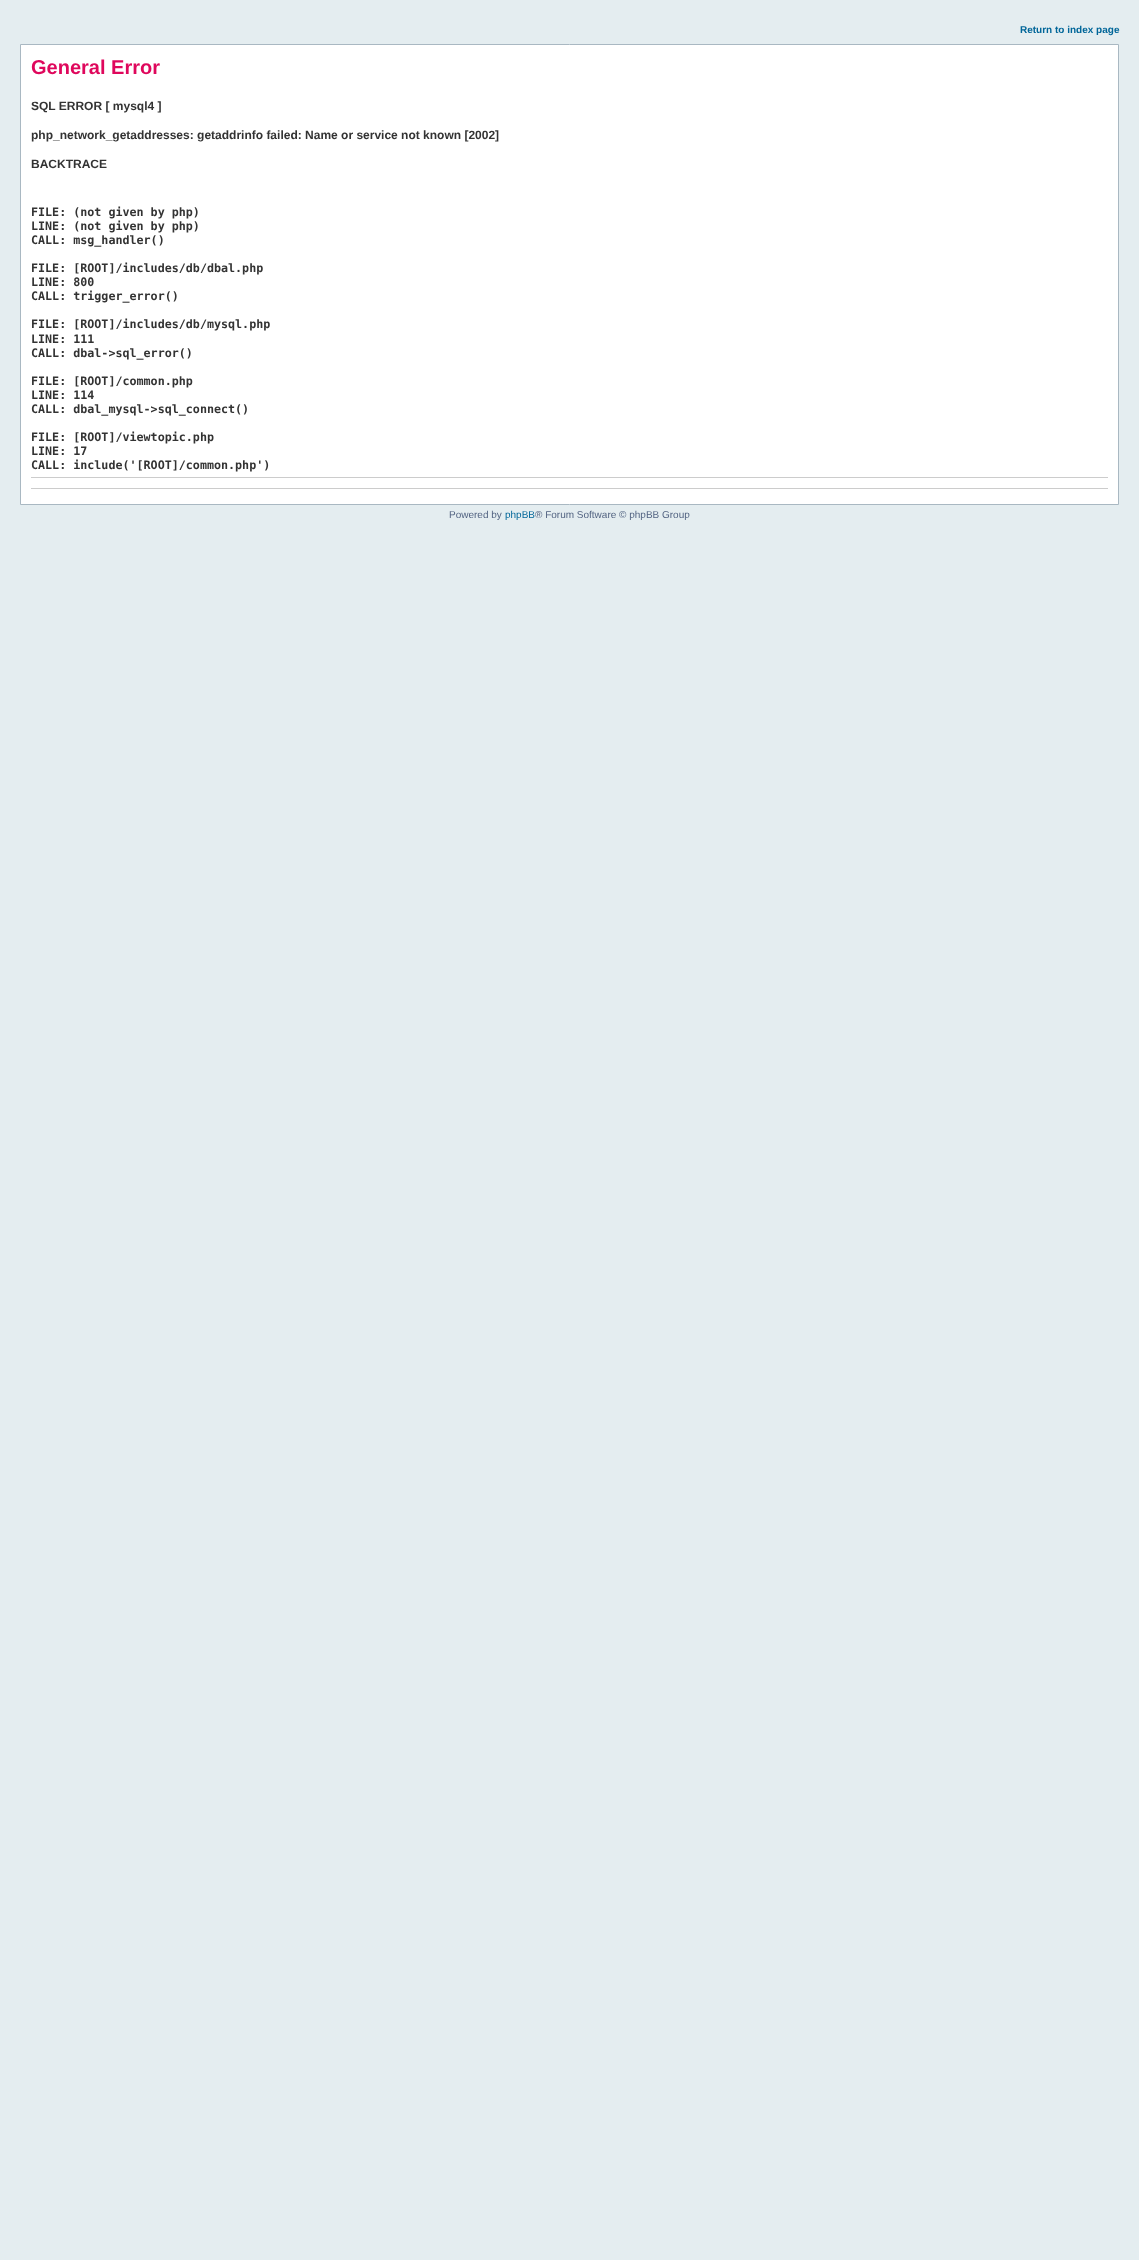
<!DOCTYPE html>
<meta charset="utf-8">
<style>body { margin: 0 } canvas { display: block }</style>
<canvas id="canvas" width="1139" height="2260"></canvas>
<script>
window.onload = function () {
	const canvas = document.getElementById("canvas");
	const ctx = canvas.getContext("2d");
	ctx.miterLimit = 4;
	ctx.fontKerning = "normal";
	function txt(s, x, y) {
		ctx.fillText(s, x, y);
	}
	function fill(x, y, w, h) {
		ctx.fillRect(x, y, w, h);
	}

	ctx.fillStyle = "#E4EDF0";
	fill(0, 0, 1139, 2260);
	ctx.fillStyle = "#FFFFFF";
	ctx.beginPath();
	ctx.rect(20.5, 44.5, 1098, 460);
	ctx.fill();
	ctx.strokeStyle = "#A9B8C2";
	ctx.stroke();
	ctx.fillStyle = "#CCCCCC";
	fill(31, 488, 1077, 1);
	fill(31, 477, 1077, 1);
	ctx.font = "bold 10px Liberation Sans";
	ctx.fillStyle = "#006699";
	txt("Return to index page", 1020, 33);
	ctx.font = "bold 20px Liberation Sans";
	ctx.fillStyle = "#DF075C";
	txt("General Error", 31, 74);
	ctx.font = "bold 12px Liberation Sans";
	ctx.fillStyle = "#333333";
	txt("SQL ERROR [ mysql4 ]", 31, 110);
	txt("php_network_getaddresses: getaddrinfo failed: Name or service not known [2002]", 31, 139);
	txt("BACKTRACE", 31, 168);
	ctx.font = "bold 11.7px DejaVu Sans Mono";
	txt("FILE: (not given by php)", 31, 216);
	txt("LINE: (not given by php)", 31, 230);
	txt("CALL: msg_handler()", 31, 244);
	txt("FILE: [ROOT]/includes/db/dbal.php", 31, 272);
	txt("LINE: 800", 31, 286);
	txt("CALL: trigger_error()", 31, 300);
	txt("FILE: [ROOT]/includes/db/mysql.php", 31, 328);
	txt("LINE: 111", 31, 343);
	txt("CALL: dbal->sql_error()", 31, 357);
	txt("FILE: [ROOT]/common.php", 31, 385);
	txt("LINE: 114", 31, 399);
	txt("CALL: dbal_mysql->sql_connect()", 31, 413);
	txt("FILE: [ROOT]/viewtopic.php", 31, 441);
	txt("LINE: 17", 31, 455);
	txt("CALL: include('[ROOT]/common.php')", 31, 469);
	ctx.font = "10px Liberation Sans";
	ctx.fillStyle = "#536482";
	txt("Powered by", 449, 518);
	ctx.fillStyle = "#006699";
	txt("phpBB", 505, 518);
	ctx.fillStyle = "#536482";
	txt("® Forum Software © phpBB Group", 535, 518);
};
</script>
